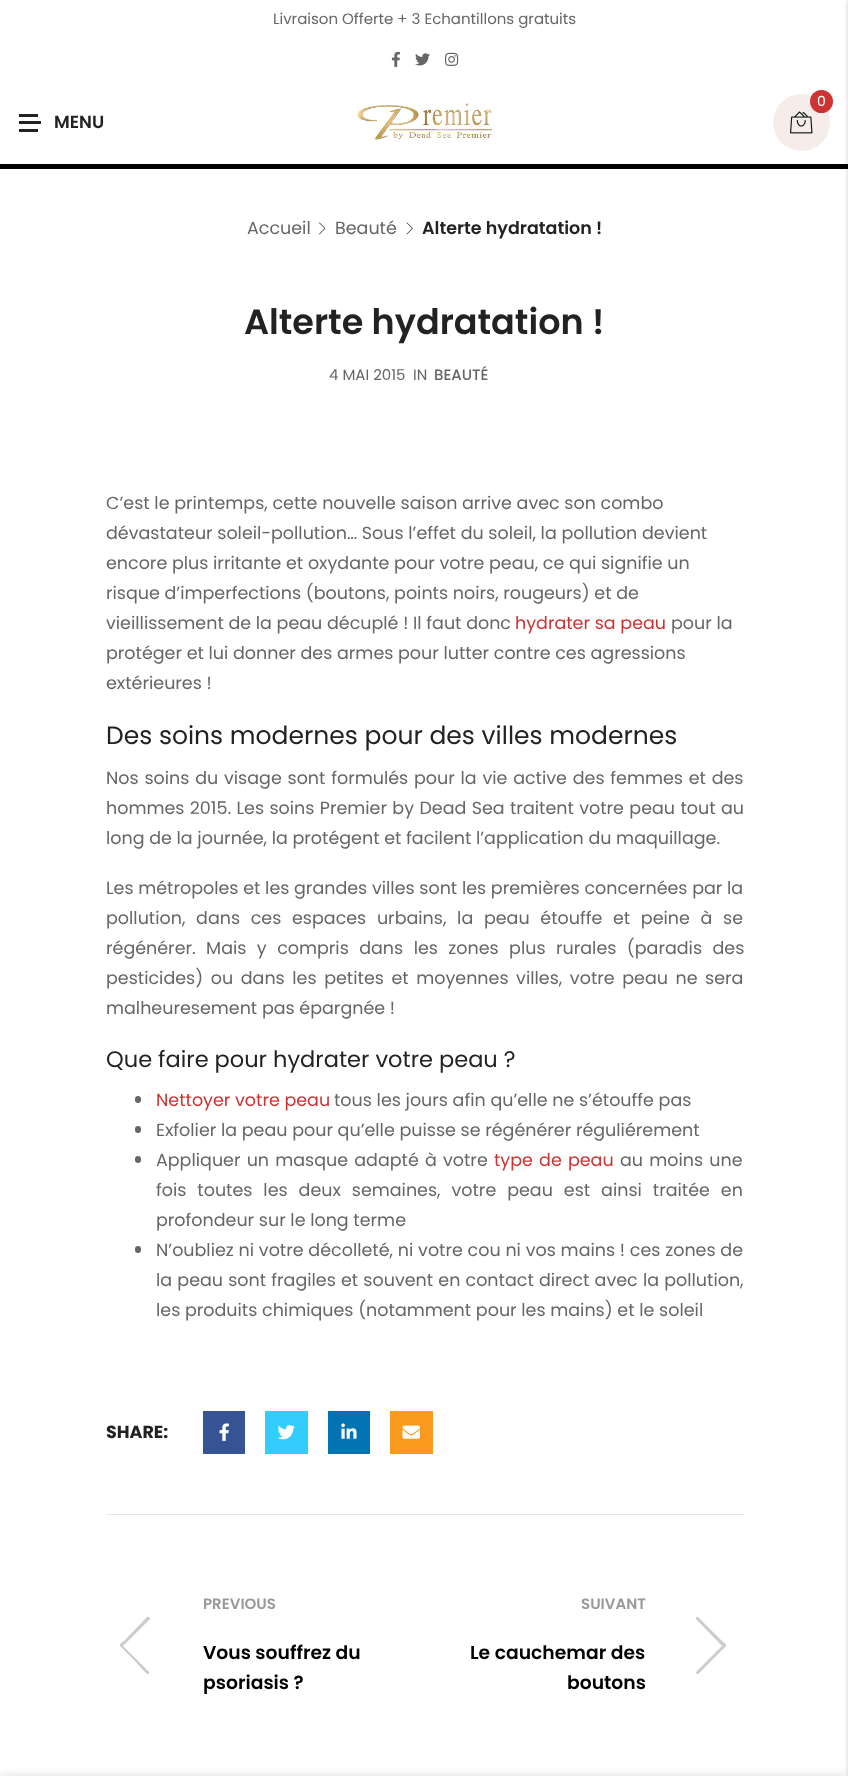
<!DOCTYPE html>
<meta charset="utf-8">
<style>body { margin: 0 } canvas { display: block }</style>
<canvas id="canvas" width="848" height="1776"></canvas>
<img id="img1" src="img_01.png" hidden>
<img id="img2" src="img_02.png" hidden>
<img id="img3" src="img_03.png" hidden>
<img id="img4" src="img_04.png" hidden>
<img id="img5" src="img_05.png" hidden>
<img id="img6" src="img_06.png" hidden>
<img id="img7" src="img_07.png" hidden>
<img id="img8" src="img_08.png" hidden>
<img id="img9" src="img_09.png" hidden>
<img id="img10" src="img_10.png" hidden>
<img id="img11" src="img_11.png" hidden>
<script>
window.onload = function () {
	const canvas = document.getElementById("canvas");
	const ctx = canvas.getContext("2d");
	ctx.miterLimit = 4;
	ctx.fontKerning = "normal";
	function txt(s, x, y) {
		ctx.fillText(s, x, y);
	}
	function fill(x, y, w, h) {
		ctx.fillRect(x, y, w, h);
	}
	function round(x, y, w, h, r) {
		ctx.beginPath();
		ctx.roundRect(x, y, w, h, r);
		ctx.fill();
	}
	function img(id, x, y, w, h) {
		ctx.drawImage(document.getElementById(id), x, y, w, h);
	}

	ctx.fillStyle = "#FFFFFF";
	fill(0, 0, 848, 1776);
	img("img1", 391, 51, 9, 16);
	img("img2", 415, 53, 15, 13);
	img("img3", 445, 52, 14, 14);
	ctx.fillStyle = "#F6EDEA";
	ctx.beginPath();
	ctx.arc(801.5, 122.5, 28.5, 0, Math.PI * 2);
	ctx.fill();
	img("img4", 790, 111, 23, 23);
	ctx.fillStyle = "#CC3333";
	ctx.beginPath();
	ctx.arc(821.5, 101.5, 11.5, 0, Math.PI * 2);
	ctx.fill();
	ctx.fillStyle = "#222222";
	fill(19, 121, 22, 3);
	fill(19, 114, 19, 3);
	fill(19, 129, 19, 3);
	img("img5", 357, 103, 135, 37);
	ctx.fillStyle = "#000000";
	fill(0, 164, 848, 5);
	img("img6", 319, 222, 7, 13);
	img("img7", 406, 222, 7, 13);
	ctx.fillStyle = "#666666";
	round(135, 1096, 6, 7, 3);
	round(135, 1126, 6, 7, 3);
	round(135, 1156, 6, 7, 3);
	round(135, 1246, 6, 7, 3);
	ctx.fillStyle = "#365493";
	fill(203, 1411, 42, 43);
	img("img8", 219, 1423, 10, 18);
	ctx.fillStyle = "#33CCFF";
	fill(265, 1411, 43, 43);
	img("img9", 277, 1425, 18, 15);
	ctx.fillStyle = "#0274B3";
	fill(328, 1411, 42, 43);
	img("img10", 341, 1423, 16, 16);
	ctx.fillStyle = "#F89A1E";
	fill(390, 1411, 43, 43);
	img("img11", 402, 1425, 18, 14);
	ctx.fillStyle = "#E6E6E6";
	fill(106, 1514, 638, 1);
	ctx.fillStyle = "#CCCCCC";
	ctx.beginPath();
	ctx.moveTo(148, 1674);
	ctx.bezierCurveTo(149, 1674, 150, 1672, 149, 1672);
	ctx.lineTo(123, 1646);
	ctx.lineTo(150, 1619);
	ctx.bezierCurveTo(150, 1618, 149, 1616, 147, 1617);
	ctx.lineTo(125, 1640);
	ctx.bezierCurveTo(118, 1646, 118, 1644, 125, 1651);
	ctx.lineTo(134, 1660);
	ctx.bezierCurveTo(136, 1662, 146, 1674, 148, 1674);
	ctx.closePath();
	ctx.fill();
	ctx.beginPath();
	ctx.moveTo(698, 1674);
	ctx.bezierCurveTo(696, 1674, 696, 1672, 696, 1672);
	ctx.lineTo(722, 1646);
	ctx.lineTo(696, 1619);
	ctx.bezierCurveTo(695, 1618, 697, 1616, 698, 1617);
	ctx.lineTo(721, 1640);
	ctx.bezierCurveTo(728, 1646, 728, 1644, 721, 1651);
	ctx.lineTo(712, 1660);
	ctx.bezierCurveTo(710, 1662, 699, 1674, 698, 1674);
	ctx.closePath();
	ctx.fill();
	ctx.fillStyle = "rgba(0, 0, 0, 0.2)";
	ctx.filter = "blur(2px)";
	ctx.beginPath();
	ctx.rect(848, 0, 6, 1776);
	ctx.fill();
	ctx.filter = "none";
	ctx.fillStyle = "rgba(0, 0, 0, 0.14)";
	ctx.filter = "blur(5.5px)";
	ctx.beginPath();
	ctx.rect(0, 1776, 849, 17);
	ctx.fill();
	ctx.filter = "none";
	ctx.font = "15px Poppins";
	ctx.fillStyle = "#666666";
	txt("Livraison Offerte + 3 Echantillons gratuits", 273, 24);
	ctx.font = "14px Poppins";
	ctx.fillStyle = "#FFFFFF";
	txt("0", 817, 106);
	ctx.font = "600 17.5px Poppins";
	ctx.fillStyle = "#222222";
	txt("MENU", 54, 128);
	ctx.font = "17.5px Poppins";
	ctx.fillStyle = "#666666";
	txt("Accueil", 247, 234);
	txt("Beauté", 335, 234);
	ctx.font = "600 17.5px Poppins";
	ctx.fillStyle = "#222222";
	txt("Alterte hydratation !", 422, 234);
	ctx.font = "600 35px Poppins";
	txt("Alterte hydratation !", 244, 334);
	ctx.font = "15px Poppins";
	ctx.fillStyle = "#666666";
	txt("4 MAI 2015", 329, 380);
	txt("IN", 413, 380);
	ctx.font = "500 15px Poppins";
	txt("BEAUTÉ", 434, 380);
	ctx.font = "17.5px Poppins";
	txt("C’est le printemps, cette nouvelle saison arrive avec son combo", 106, 509);
	txt("dévastateur soleil-pollution… Sous l’effet du soleil, la pollution devient", 106, 539);
	txt("encore plus irritante et oxydante pour votre peau, ce qui signifie un", 106, 569);
	txt("risque d’imperfections (boutons, points noirs, rougeurs) et de", 106, 599);
	txt("vieillissement de la peau décuplé ! Il faut donc", 106, 629);
	ctx.fillStyle = "#CC3333";
	txt("hydrater sa peau", 515, 629);
	ctx.fillStyle = "#666666";
	txt("pour la", 671, 629);
	txt("protéger et lui donner des armes pour lutter contre ces agressions", 106, 659);
	txt("extérieures !", 106, 689);
	ctx.font = "25px Poppins";
	ctx.fillStyle = "#222222";
	txt("Des soins modernes pour des villes modernes", 106, 744);
	ctx.wordSpacing = "1.1px";
	ctx.font = "17.5px Poppins";
	ctx.fillStyle = "#666666";
	txt("Nos soins du visage sont formulés pour la vie active des femmes et des", 106, 784);
	ctx.wordSpacing = "0.7px";
	txt("hommes 2015. Les soins Premier by Dead Sea traitent votre peau tout au", 106, 814);
	ctx.wordSpacing = "0px";
	txt("long de la journée, la protégent et facilent l’application du maquillage.", 106, 844);
	txt("Les métropoles et les grandes villes sont les premières concernées par la", 106, 894);
	ctx.wordSpacing = "6px";
	txt("pollution, dans ces espaces urbains, la peau étouffe et peine à se", 106, 924);
	ctx.wordSpacing = "5.75px";
	txt("régénérer. Mais y compris dans les zones plus rurales (paradis des", 106, 954);
	ctx.wordSpacing = "2.9px";
	txt("pesticides) ou dans les petites et moyennes villes, votre peau ne sera", 106, 984);
	ctx.wordSpacing = "0px";
	txt("malheuresement pas épargnée !", 106, 1014);
	ctx.font = "22.5px Poppins";
	ctx.fillStyle = "#222222";
	txt("Que faire pour hydrater votre peau ?", 106, 1067);
	ctx.font = "17.5px Poppins";
	ctx.fillStyle = "#CC3333";
	txt("Nettoyer votre peau", 156, 1106);
	ctx.fillStyle = "#666666";
	txt("tous les jours afin qu’elle ne s’étouffe pas", 334, 1106);
	txt("Exfolier la peau pour qu’elle puisse se régénérer réguliérement", 156, 1136);
	ctx.wordSpacing = "1.5px";
	txt("Appliquer un masque adapté à votre", 156, 1166);
	ctx.fillStyle = "#CC3333";
	txt("type de peau", 494, 1166);
	ctx.fillStyle = "#666666";
	txt("au moins une", 620, 1166);
	ctx.wordSpacing = "6.25px";
	txt("fois toutes les deux semaines, votre peau est ainsi traitée en", 156, 1196);
	ctx.wordSpacing = "0px";
	txt("profondeur sur le long terme", 156, 1226);
	ctx.wordSpacing = "0.1px";
	txt("N’oubliez ni votre décolleté, ni votre cou ni vos mains ! ces zones de", 156, 1256);
	ctx.wordSpacing = "0.5px";
	txt("la peau sont fragiles et souvent en contact direct avec la pollution,", 156, 1286);
	ctx.wordSpacing = "0px";
	txt("les produits chimiques (notamment pour les mains) et le soleil", 156, 1316);
	ctx.font = "bold 17.5px Poppins";
	ctx.fillStyle = "#222222";
	txt("SHARE:", 106, 1438);
	ctx.font = "600 15px Poppins";
	ctx.fillStyle = "#999999";
	txt("PREVIOUS", 203, 1609);
	ctx.font = "600 18.75px Poppins";
	ctx.fillStyle = "#000000";
	txt("Vous souffrez du", 203, 1659);
	txt("psoriasis ?", 203, 1689);
	ctx.font = "600 15px Poppins";
	ctx.fillStyle = "#999999";
	txt("SUIVANT", 581, 1609);
	ctx.font = "600 18.75px Poppins";
	ctx.fillStyle = "#000000";
	txt("Le cauchemar des", 470, 1659);
	txt("boutons", 567, 1689);
};
</script>
